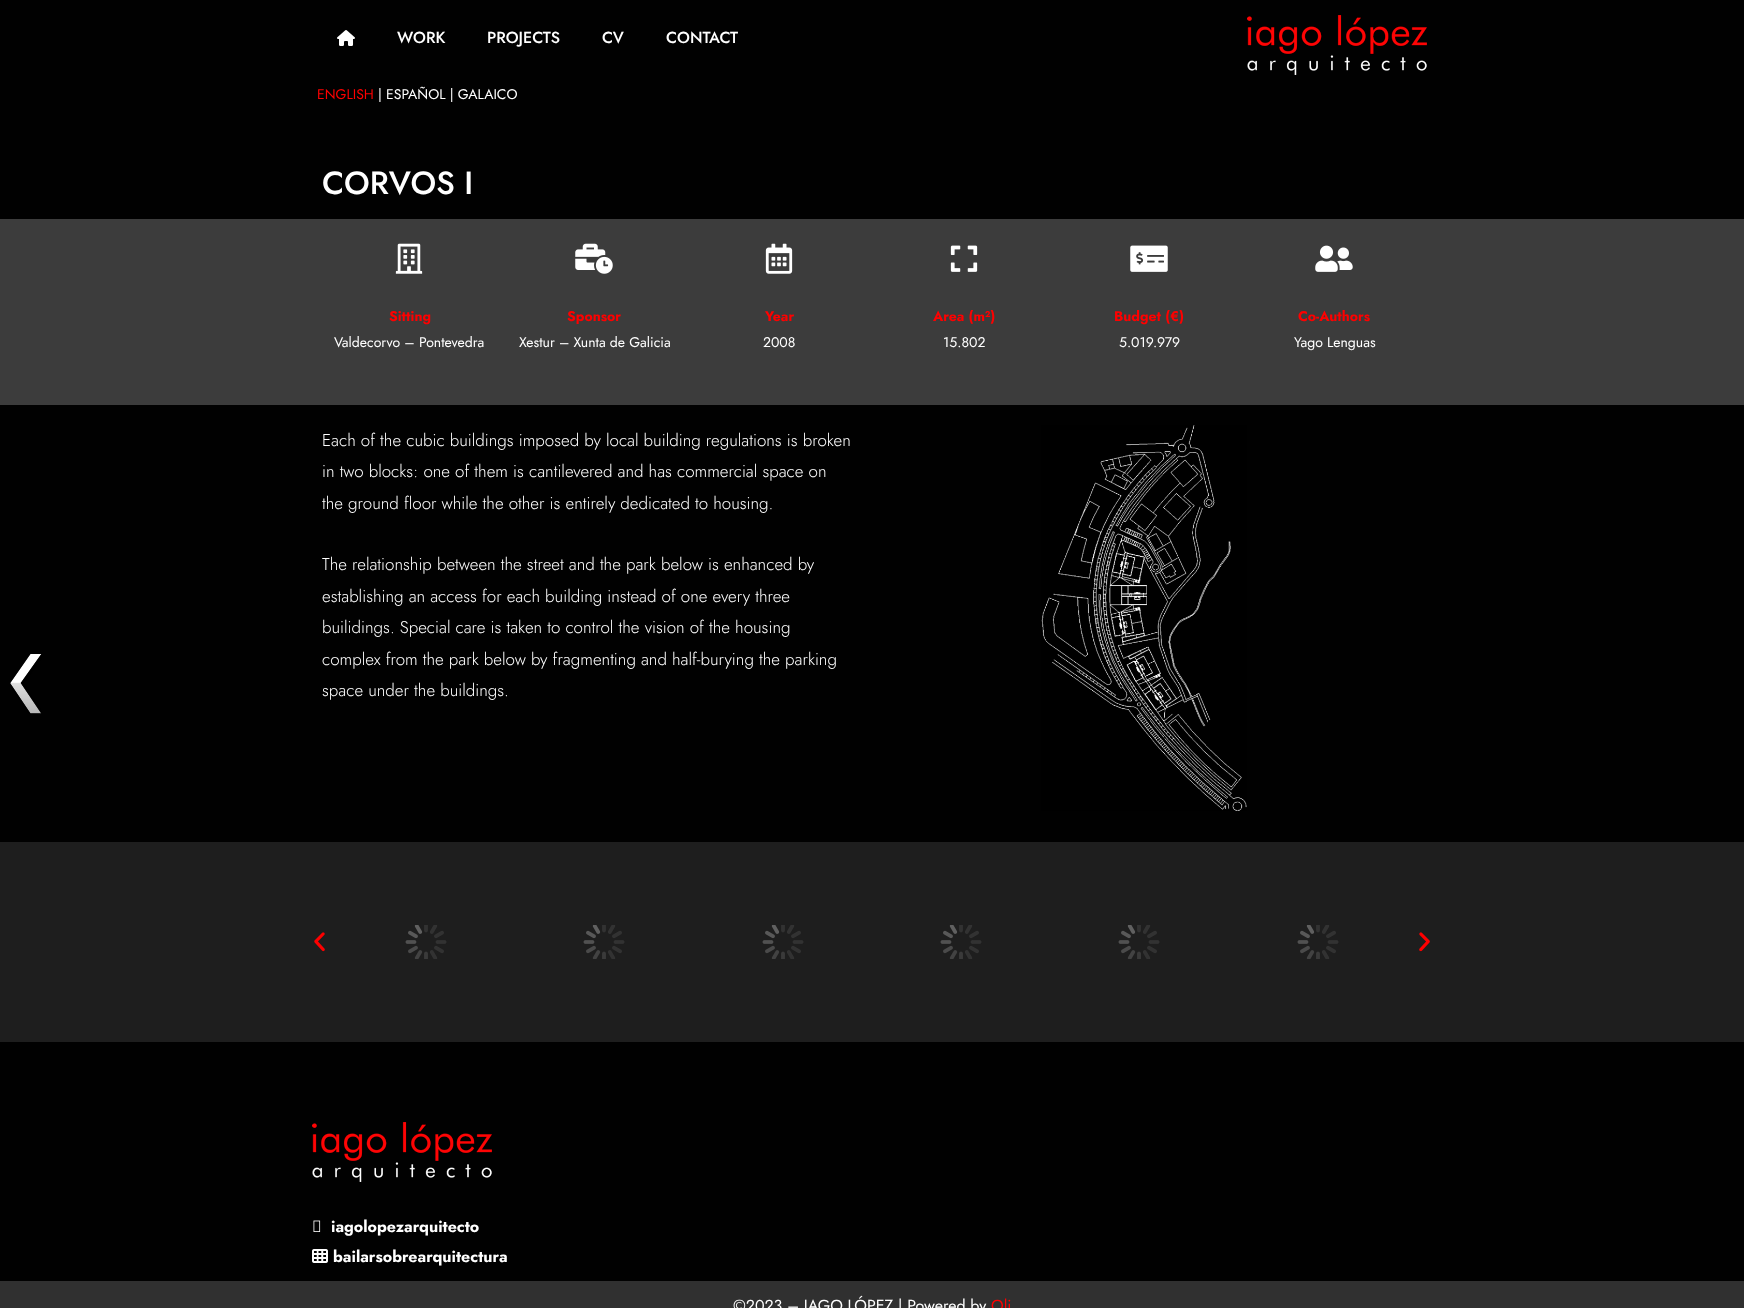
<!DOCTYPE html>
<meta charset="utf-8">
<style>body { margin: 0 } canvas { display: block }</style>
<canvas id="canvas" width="1744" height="1308"></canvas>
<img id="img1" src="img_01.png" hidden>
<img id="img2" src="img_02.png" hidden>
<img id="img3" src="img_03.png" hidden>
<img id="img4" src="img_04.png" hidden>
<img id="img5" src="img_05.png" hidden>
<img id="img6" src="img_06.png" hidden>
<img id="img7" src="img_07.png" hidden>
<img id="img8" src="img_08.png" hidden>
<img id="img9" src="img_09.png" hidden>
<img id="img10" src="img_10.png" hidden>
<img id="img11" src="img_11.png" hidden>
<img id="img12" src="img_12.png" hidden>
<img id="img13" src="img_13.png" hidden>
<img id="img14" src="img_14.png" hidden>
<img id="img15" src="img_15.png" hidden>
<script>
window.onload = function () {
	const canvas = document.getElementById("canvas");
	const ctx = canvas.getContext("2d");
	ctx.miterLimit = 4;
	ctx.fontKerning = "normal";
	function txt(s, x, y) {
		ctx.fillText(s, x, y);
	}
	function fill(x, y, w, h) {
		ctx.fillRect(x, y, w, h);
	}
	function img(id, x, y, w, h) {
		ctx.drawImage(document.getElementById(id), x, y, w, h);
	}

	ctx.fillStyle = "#010101";
	fill(0, 0, 1744, 1308);
	img("img1", 10, 654, 32, 60);
	img("img2", 337, 30, 18, 16);
	img("img3", 1247, 15, 180, 60);
	ctx.fillStyle = "#3C3C3C";
	fill(0, 219, 1744, 186);
	img("img4", 395, 243, 28, 31);
	img("img5", 575, 243, 38, 31);
	img("img6", 765, 243, 28, 31);
	img("img7", 950, 245, 28, 27);
	img("img8", 1130, 245, 38, 27);
	img("img9", 1315, 245, 38, 27);
	img("img10", 1041, 425, 206, 386);
	ctx.fillStyle = "#1E1E1E";
	fill(0, 842, 1744, 200);
	img("img11", 314, 932, 11, 20);
	img("img12", 405, 925, 42, 34);
	img("img12", 583, 925, 42, 34);
	img("img12", 762, 925, 42, 34);
	img("img12", 940, 925, 42, 34);
	img("img12", 1118, 925, 42, 34);
	img("img12", 1297, 925, 42, 34);
	img("img13", 1419, 932, 11, 20);
	img("img3", 312, 1122, 180, 60);
	img("img14", 313, 1220, 8, 12);
	img("img15", 312, 1249, 16, 14);
	ctx.fillStyle = "#303030";
	fill(0, 1281, 1744, 27);
	ctx.font = "500 16px Jost";
	ctx.fillStyle = "#FFFFFF";
	txt("WORK", 397, 43);
	txt("PROJECTS", 487, 43);
	txt("CV", 602, 43);
	txt("CONTACT", 666, 43);
	ctx.font = "14px Jost";
	ctx.fillStyle = "#FF0000";
	txt("ENGLISH", 317, 99);
	ctx.fillStyle = "#FFFFFF";
	txt("| ESPAÑOL | GALAICO", 378, 99);
	ctx.font = "500 32px Jost";
	txt("CORVOS I", 322, 194);
	ctx.font = "bold 14px Jost";
	ctx.fillStyle = "#FF0000";
	txt("Sitting", 389, 321);
	ctx.font = "14px Jost";
	ctx.fillStyle = "#FFFFFF";
	txt("Valdecorvo – Pontevedra", 334, 347);
	ctx.font = "bold 14px Jost";
	ctx.fillStyle = "#FF0000";
	txt("Sponsor", 567, 321);
	ctx.font = "14px Jost";
	ctx.fillStyle = "#FFFFFF";
	txt("Xestur – Xunta de Galicia", 519, 347);
	ctx.font = "bold 14px Jost";
	ctx.fillStyle = "#FF0000";
	txt("Year", 765, 321);
	ctx.font = "14px Jost";
	ctx.fillStyle = "#FFFFFF";
	txt("2008", 763, 347);
	ctx.font = "bold 14px Jost";
	ctx.fillStyle = "#FF0000";
	txt("Area (m²)", 933, 321);
	ctx.font = "14px Jost";
	ctx.fillStyle = "#FFFFFF";
	txt("15.802", 943, 347);
	ctx.font = "bold 14px Jost";
	ctx.fillStyle = "#FF0000";
	txt("Budget (€)", 1114, 321);
	ctx.font = "14px Jost";
	ctx.fillStyle = "#FFFFFF";
	txt("5.019.979", 1119, 347);
	ctx.font = "bold 14px Jost";
	ctx.fillStyle = "#FF0000";
	txt("Co-Authors", 1298, 321);
	ctx.font = "14px Jost";
	ctx.fillStyle = "#FFFFFF";
	txt("Yago Lenguas", 1294, 347);
	ctx.font = "300 17px Jost";
	txt("Each of the cubic buildings imposed by local building regulations is broken", 322, 446);
	txt("in two blocks: one of them is cantilevered and has commercial space on", 322, 477);
	txt("the ground floor while the other is entirely dedicated to housing.", 322, 509);
	txt("The relationship between the street and the park below is enhanced by", 322, 570);
	txt("establishing an access for each building instead of one every three", 322, 602);
	txt("builidings. Special care is taken to control the vision of the housing", 322, 633);
	txt("complex from the park below by fragmenting and half-burying the parking", 322, 665);
	txt("space under the buildings.", 322, 696);
	ctx.font = "bold 16px Jost";
	txt("iagolopezarquitecto", 331, 1232);
	txt("bailarsobrearquitectura", 333, 1262);
	ctx.font = "16px Jost";
	txt("©2023 – IAGO LÓPEZ | Powered by", 733, 1311);
	ctx.fillStyle = "#FF0000";
	txt("Oli", 991, 1311);
};
</script>
